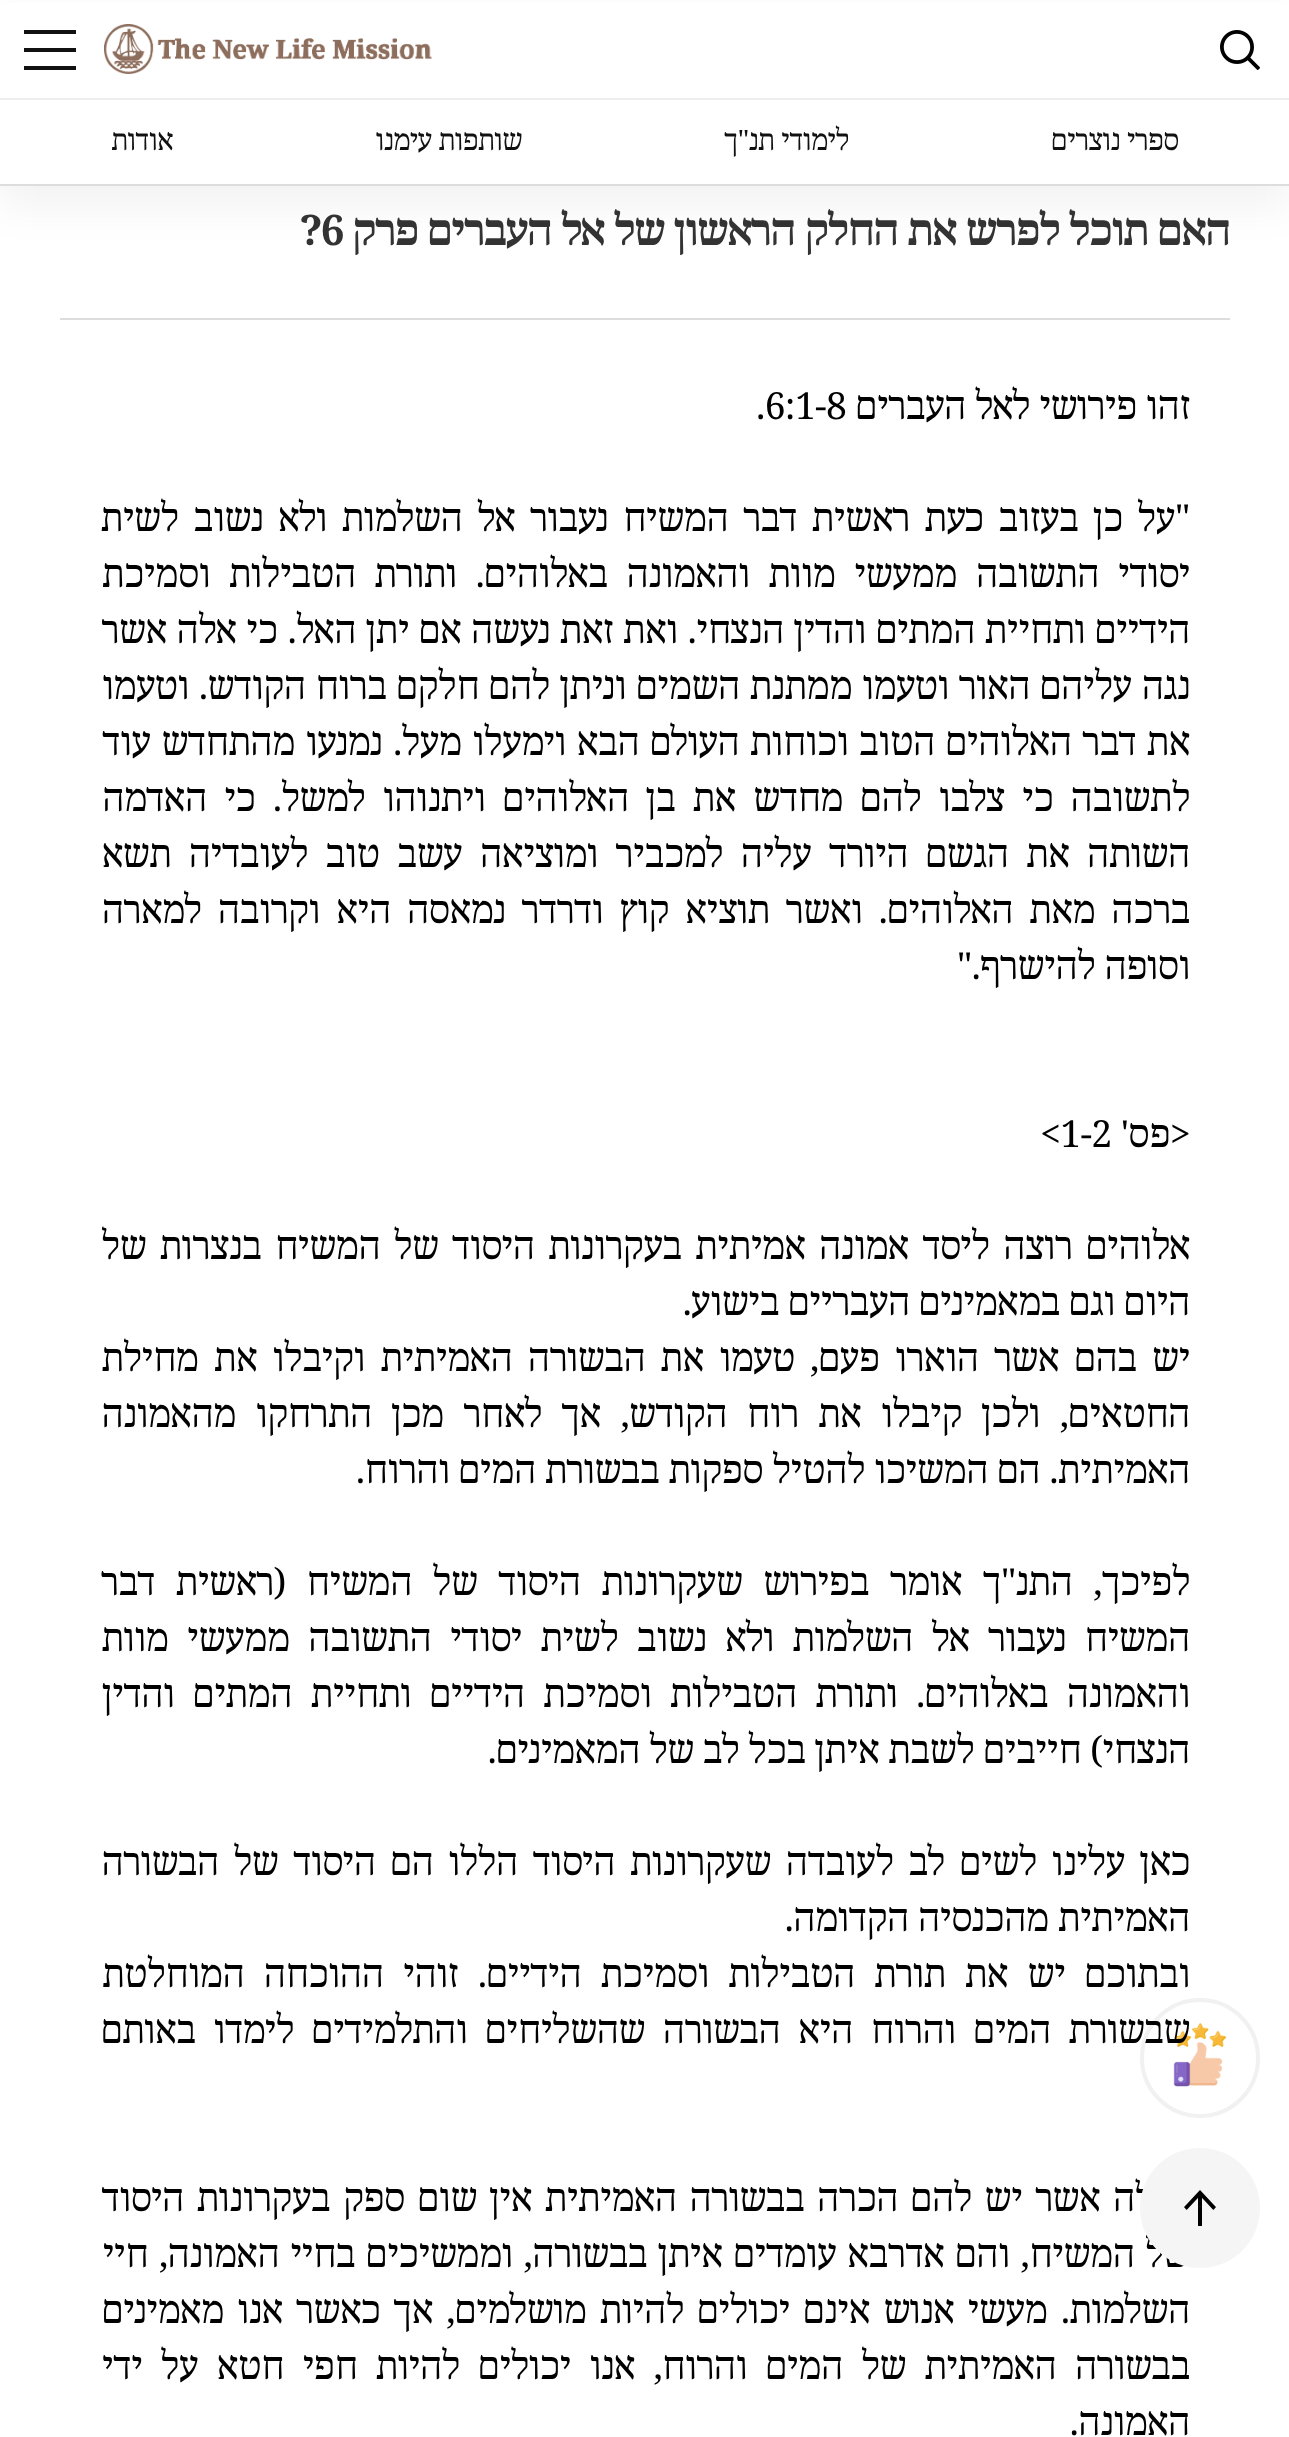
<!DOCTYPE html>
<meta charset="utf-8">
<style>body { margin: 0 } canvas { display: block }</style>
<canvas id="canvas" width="1289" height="2437"></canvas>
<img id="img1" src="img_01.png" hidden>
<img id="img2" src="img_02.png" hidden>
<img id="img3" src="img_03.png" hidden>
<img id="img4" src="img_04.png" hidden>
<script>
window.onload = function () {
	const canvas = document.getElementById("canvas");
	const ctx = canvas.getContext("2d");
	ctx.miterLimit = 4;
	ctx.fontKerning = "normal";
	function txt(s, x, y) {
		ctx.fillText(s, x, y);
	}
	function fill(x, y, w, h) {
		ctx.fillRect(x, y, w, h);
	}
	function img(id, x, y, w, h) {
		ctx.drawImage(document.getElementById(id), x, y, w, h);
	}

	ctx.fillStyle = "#FFFFFF";
	fill(0, 0, 1289, 2437);
	ctx.fillStyle = "rgba(0, 0, 0, 0.05)";
	ctx.filter = "blur(20px)";
	ctx.beginPath();
	ctx.rect(0, 20, 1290, 186);
	ctx.fill();
	ctx.filter = "none";
	ctx.fillStyle = "#FFFFFF";
	fill(0, 3, 1289, 181);
	ctx.fillStyle = "#DDDDDD";
	fill(0, 184, 1289, 2);
	img("img1", 1220, 30, 40, 40);
	img("img2", 104, 24, 328, 50);
	ctx.fillStyle = "#111111";
	fill(24, 30, 52, 4);
	fill(24, 48, 52, 4);
	fill(24, 66, 52, 4);
	ctx.beginPath();
	ctx.arc(1200, 2058, 58, 0, Math.PI * 2);
	ctx.strokeStyle = "#F1F1F1";
	ctx.lineWidth = 4;
	ctx.stroke();
	img("img3", 1173, 2023, 54, 64);
	ctx.fillStyle = "#EEEEEE";
	fill(0, 98, 1289, 2);
	ctx.fillStyle = "#DDDDDD";
	fill(60, 318, 1170, 2);
	ctx.letterSpacing = "-0.65px";
	ctx.direction = "rtl";
	ctx.font = "28px Noto Serif Hebrew";
	ctx.fillStyle = "#111111";
	txt("ספרי נוצרים", 1179, 150);
	txt("לימודי תנ\"ך", 849, 150);
	txt("שותפות עימנו", 522, 150);
	txt("אודות", 173, 150);
	ctx.letterSpacing = "-1.25px";
	ctx.font = "bold 42px Noto Serif Hebrew";
	ctx.fillStyle = "#333333";
	txt("האם תוכל לפרש את החלק הראשון של אל העברים פרק", 1230, 245);
	ctx.direction = "ltr";
	txt("?6", 300, 245);
	ctx.letterSpacing = "-0.65px";
	ctx.direction = "rtl";
	ctx.font = "37.3px Noto Serif Hebrew";
	ctx.fillStyle = "#000000";
	txt("זהו פירושי לאל העברים", 1190, 419);
	ctx.direction = "ltr";
	txt(".6:1-8", 756, 419);
	txt("\"", 1175, 531);
	ctx.wordSpacing = "5.75px";
	ctx.direction = "rtl";
	txt("על כן בעזוב כעת ראשית דבר המשיח נעבור אל השלמות ולא נשוב לשית", 1175, 531);
	ctx.wordSpacing = "9.75px";
	txt("יסודי התשובה ממעשי מוות והאמונה באלוהים. ותורת הטבילות וסמיכת", 1190, 587);
	ctx.wordSpacing = "0.75px";
	txt("הידיים ותחיית המתים והדין הנצחי. ואת זאת נעשה אם יתן האל. כי אלה אשר", 1190, 643);
	txt("נגה עליהם האור וטעמו ממתנת השמים וניתן להם חלקם ברוח הקודש. וטעמו", 1190, 699);
	ctx.wordSpacing = "1.6px";
	txt("את דבר האלוהים הטוב וכוחות העולם הבא וימעלו מעל. נמנעו מהתחדש עוד", 1190, 755);
	ctx.wordSpacing = "8.25px";
	txt("לתשובה כי צלבו להם מחדש את בן האלוהים ויתנוהו למשל. כי האדמה", 1190, 811);
	ctx.wordSpacing = "8.5px";
	txt("השותה את הגשם היורד עליה למכביר ומוציאה עשב טוב לעובדיה תשא", 1190, 867);
	ctx.wordSpacing = "7px";
	txt("ברכה מאת האלוהים. ואשר תוציא קוץ ודרדר נמאסה היא וקרובה למארה", 1190, 923);
	ctx.wordSpacing = "0px";
	txt("וסופה להישרף.\"", 1190, 979);
	ctx.direction = "ltr";
	txt(">", 1170, 1147);
	ctx.direction = "rtl";
	txt("פס'", 1170, 1147);
	ctx.direction = "ltr";
	txt("<1-2", 1040, 1147);
	ctx.wordSpacing = "4.5px";
	ctx.direction = "rtl";
	txt("אלוהים רוצה ליסד אמונה אמיתית בעקרונות היסוד של המשיח בנצרות של", 1190, 1259);
	ctx.wordSpacing = "0px";
	txt("היום וגם במאמינים העבריים בישוע.", 1190, 1315);
	ctx.wordSpacing = "6.25px";
	txt("יש בהם אשר הוארו פעם, טעמו את הבשורה האמיתית וקיבלו את מחילת", 1190, 1371);
	ctx.wordSpacing = "10.5px";
	txt("החטאים, ולכן קיבלו את רוח הקודש, אך לאחר מכן התרחקו מהאמונה", 1190, 1427);
	ctx.wordSpacing = "0px";
	txt("האמיתית. הם המשיכו להטיל ספקות בבשורת המים והרוח.", 1190, 1483);
	ctx.wordSpacing = "11.75px";
	txt("לפיכך, התנ\"ך אומר בפירוש שעקרונות היסוד של המשיח (ראשית דבר", 1190, 1595);
	ctx.wordSpacing = "9.4px";
	txt("המשיח נעבור אל השלמות ולא נשוב לשית יסודי התשובה ממעשי מוות", 1190, 1651);
	ctx.wordSpacing = "9.5px";
	txt("והאמונה באלוהים. ותורת הטבילות וסמיכת הידיים ותחיית המתים והדין", 1190, 1707);
	ctx.wordSpacing = "0px";
	txt("הנצחי) חייבים לשבת איתן בכל לב של המאמינים.", 1190, 1763);
	ctx.wordSpacing = "5.75px";
	txt("כאן עלינו לשים לב לעובדה שעקרונות היסוד הללו הם היסוד של הבשורה", 1190, 1875);
	ctx.wordSpacing = "0px";
	txt("האמיתית מהכנסיה הקדומה.", 1190, 1931);
	ctx.wordSpacing = "10.25px";
	txt("ובתוכם יש את תורת הטבילות וסמיכת הידיים. זוהי ההוכחה המוחלטת", 1190, 1987);
	ctx.wordSpacing = "8.75px";
	txt("שבשורת המים והרוח היא הבשורה שהשליחים והתלמידים לימדו באותם", 1190, 2043);
	ctx.wordSpacing = "3.6px";
	txt("לאלה אשר יש להם הכרה בבשורה האמיתית אין שום ספק בעקרונות היסוד", 1190, 2211);
	ctx.wordSpacing = "1.75px";
	txt("של המשיח, והם אדרבא עומדים איתן בבשורה, וממשיכים בחיי האמונה, חיי", 1190, 2267);
	ctx.fillStyle = "#F5F5F5";
	ctx.beginPath();
	ctx.arc(1200, 2208, 60, 0, Math.PI * 2);
	ctx.fill();
	img("img4", 1184, 2190, 32, 36);
	ctx.wordSpacing = "4.25px";
	ctx.fillStyle = "#000000";
	txt("השלמות. מעשי אנוש אינם יכולים להיות מושלמים, אך כאשר אנו מאמינים", 1190, 2323);
	ctx.wordSpacing = "9.4px";
	txt("בבשורה האמיתית של המים והרוח, אנו יכולים להיות חפי חטא על ידי", 1190, 2379);
	ctx.wordSpacing = "0px";
	txt("האמונה.", 1190, 2435);
};
</script>
